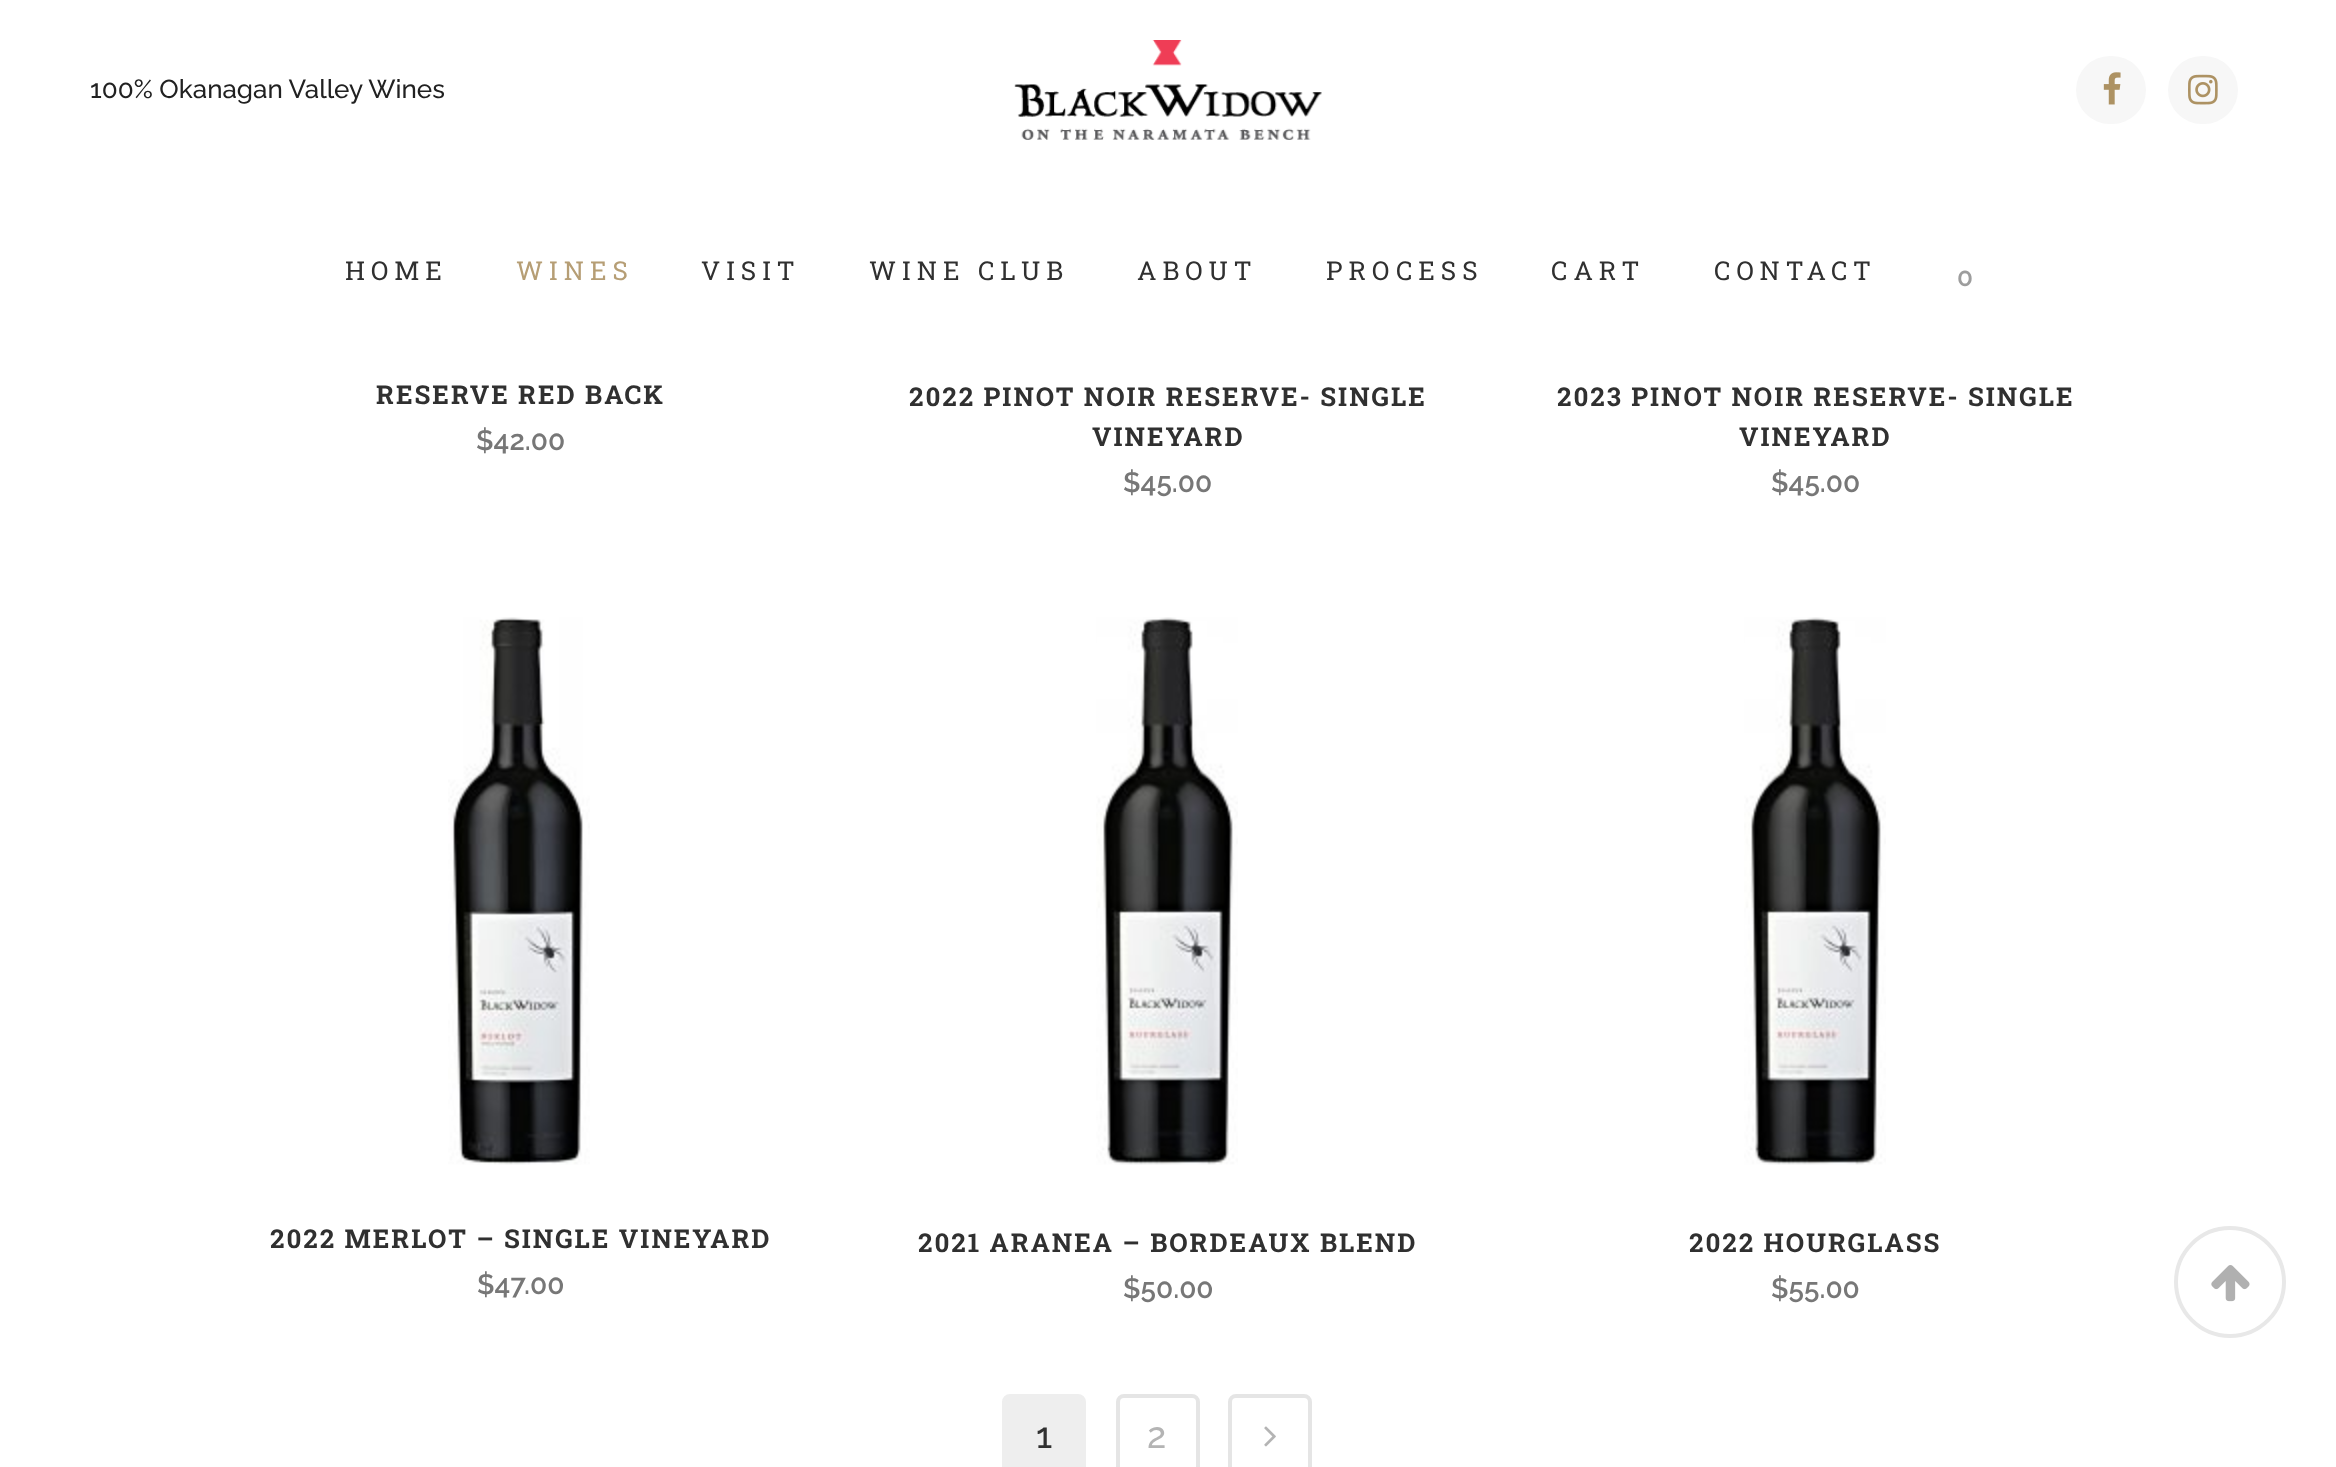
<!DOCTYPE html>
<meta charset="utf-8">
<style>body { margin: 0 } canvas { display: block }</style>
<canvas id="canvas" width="2336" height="1467"></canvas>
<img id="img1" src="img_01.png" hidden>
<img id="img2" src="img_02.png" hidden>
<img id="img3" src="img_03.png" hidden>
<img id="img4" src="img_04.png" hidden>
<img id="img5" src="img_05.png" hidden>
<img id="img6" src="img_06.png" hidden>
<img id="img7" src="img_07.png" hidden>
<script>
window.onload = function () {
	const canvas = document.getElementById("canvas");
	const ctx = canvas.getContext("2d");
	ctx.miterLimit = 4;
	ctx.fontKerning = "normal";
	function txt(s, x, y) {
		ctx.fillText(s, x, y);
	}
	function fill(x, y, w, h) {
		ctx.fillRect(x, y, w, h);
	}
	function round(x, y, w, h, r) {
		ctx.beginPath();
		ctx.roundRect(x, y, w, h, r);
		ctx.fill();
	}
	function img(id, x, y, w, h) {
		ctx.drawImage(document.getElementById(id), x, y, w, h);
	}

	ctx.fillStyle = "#FFFFFF";
	fill(0, 0, 2336, 1467);
	img("img1", 1014, 40, 308, 100);
	ctx.fillStyle = "#F7F7F7";
	round(2076, 56, 70, 68, 34);
	img("img2", 2103, 72, 18, 33);
	round(2168, 56, 70, 68, 34);
	img("img3", 2188, 74, 30, 31);
	img("img4", 448, 617, 142, 548);
	img("img5", 1096, 617, 142, 548);
	img("img5", 1744, 617, 142, 548);
	ctx.fillStyle = "#EEEEEE";
	ctx.beginPath();
	ctx.roundRect(1004, 1396, 80, 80, 6);
	ctx.fill();
	ctx.strokeStyle = "#EEEEEE";
	ctx.lineWidth = 4;
	ctx.stroke();
	ctx.beginPath();
	ctx.roundRect(1118, 1396, 80, 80, 6);
	ctx.strokeStyle = "#E5E5E5";
	ctx.stroke();
	ctx.beginPath();
	ctx.roundRect(1230, 1396, 80, 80, 6);
	ctx.stroke();
	img("img6", 1264, 1426, 12, 21);
	ctx.beginPath();
	ctx.arc(2230, 1282, 54, 0, Math.PI * 2);
	ctx.strokeStyle = "#E8E8E8";
	ctx.stroke();
	img("img7", 2211, 1265, 39, 37);
	ctx.font = "500 26px Raleway";
	ctx.fillStyle = "#212121";
	txt("100% Okanagan Valley Wines", 90, 98);
	ctx.letterSpacing = "6px";
	ctx.font = "26px Roboto Slab";
	ctx.fillStyle = "#303030";
	txt("HOME", 345, 280);
	ctx.fillStyle = "#B69E75";
	txt("WINES", 516, 280);
	ctx.fillStyle = "#303030";
	txt("VISIT", 701, 280);
	txt("WINE CLUB", 869, 280);
	txt("ABOUT", 1137, 280);
	txt("PROCESS", 1326, 280);
	txt("CART", 1551, 280);
	txt("CONTACT", 1714, 280);
	ctx.letterSpacing = "0px";
	ctx.font = "600 26px Raleway";
	ctx.fillStyle = "#9D9D9D";
	txt("0", 1957, 286);
	ctx.letterSpacing = "2px";
	ctx.font = "bold 26px Roboto Slab";
	ctx.fillStyle = "#303030";
	txt("RESERVE RED BACK", 376, 404);
	ctx.letterSpacing = "0px";
	ctx.font = "600 28px Raleway";
	ctx.fillStyle = "#777777";
	txt("$42.00", 476, 450);
	ctx.letterSpacing = "2px";
	ctx.font = "bold 26px Roboto Slab";
	ctx.fillStyle = "#303030";
	txt("2022 PINOT NOIR RESERVE- SINGLE", 909, 406);
	txt("VINEYARD", 1092, 446);
	ctx.letterSpacing = "0px";
	ctx.font = "600 28px Raleway";
	ctx.fillStyle = "#777777";
	txt("$45.00", 1123, 492);
	ctx.letterSpacing = "2px";
	ctx.font = "bold 26px Roboto Slab";
	ctx.fillStyle = "#303030";
	txt("2023 PINOT NOIR RESERVE- SINGLE", 1557, 406);
	txt("VINEYARD", 1739, 446);
	ctx.letterSpacing = "0px";
	ctx.font = "600 28px Raleway";
	ctx.fillStyle = "#777777";
	txt("$45.00", 1771, 492);
	ctx.letterSpacing = "2px";
	ctx.font = "bold 26px Roboto Slab";
	ctx.fillStyle = "#303030";
	txt("2022 MERLOT – SINGLE VINEYARD", 270, 1248);
	ctx.letterSpacing = "0px";
	ctx.font = "600 28px Raleway";
	ctx.fillStyle = "#777777";
	txt("$47.00", 477, 1294);
	ctx.letterSpacing = "2px";
	ctx.font = "bold 26px Roboto Slab";
	ctx.fillStyle = "#303030";
	txt("2021 ARANEA – BORDEAUX BLEND", 918, 1252);
	ctx.letterSpacing = "0px";
	ctx.font = "600 28px Raleway";
	ctx.fillStyle = "#777777";
	txt("$50.00", 1123, 1298);
	ctx.letterSpacing = "2px";
	ctx.font = "bold 26px Roboto Slab";
	ctx.fillStyle = "#303030";
	txt("2022 HOURGLASS", 1689, 1252);
	ctx.letterSpacing = "0px";
	ctx.font = "600 28px Raleway";
	ctx.fillStyle = "#777777";
	txt("$55.00", 1771, 1298);
	ctx.font = "500 36px Raleway";
	ctx.fillStyle = "#303030";
	txt("1", 1036, 1448);
	ctx.fillStyle = "#B4B4B4";
	txt("2", 1147, 1448);
};
</script>
